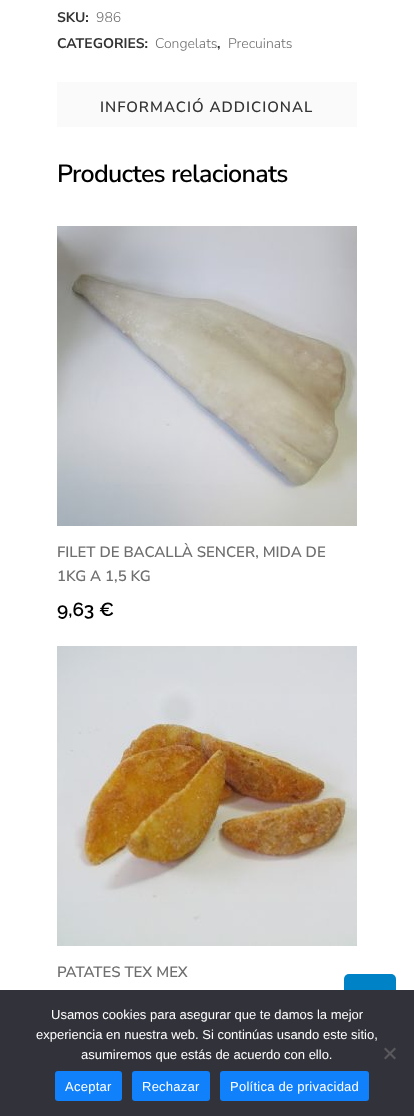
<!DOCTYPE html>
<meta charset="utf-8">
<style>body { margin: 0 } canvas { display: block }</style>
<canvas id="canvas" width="414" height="1116"></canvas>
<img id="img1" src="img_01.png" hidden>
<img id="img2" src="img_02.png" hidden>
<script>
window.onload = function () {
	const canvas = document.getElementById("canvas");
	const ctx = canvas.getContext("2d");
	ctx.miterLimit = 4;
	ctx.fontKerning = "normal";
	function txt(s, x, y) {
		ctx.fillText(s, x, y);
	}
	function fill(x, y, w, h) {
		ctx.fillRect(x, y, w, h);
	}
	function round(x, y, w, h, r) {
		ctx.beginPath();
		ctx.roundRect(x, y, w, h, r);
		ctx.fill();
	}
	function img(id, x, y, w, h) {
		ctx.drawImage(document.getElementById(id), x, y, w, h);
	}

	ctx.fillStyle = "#FFFFFF";
	fill(0, 0, 414, 1116);
	ctx.fillStyle = "#FAFAFA";
	fill(57, 82, 300, 45);
	img("img1", 57, 226, 300, 300);
	img("img2", 57, 646, 300, 300);
	ctx.fillStyle = "#0082C6";
	round(344, 974, 52, 52, 5);
	ctx.fillStyle = "#32323A";
	fill(0, 990, 414, 126);
	ctx.fillStyle = "#59595D";
	ctx.beginPath();
	ctx.moveTo(394.5, 1047.5);
	ctx.lineTo(396, 1049);
	ctx.lineTo(385.5, 1059.5);
	ctx.lineTo(384, 1058);
	ctx.closePath();
	ctx.fill();
	ctx.beginPath();
	ctx.moveTo(384, 1049);
	ctx.lineTo(385.5, 1047.5);
	ctx.lineTo(396, 1058);
	ctx.lineTo(394.5, 1059.5);
	ctx.closePath();
	ctx.fill();
	ctx.fillStyle = "#1181FB";
	round(55, 1071, 67, 30, 3);
	round(132, 1071, 78, 30, 3);
	round(220, 1071, 149, 30, 3);
	ctx.font = "bold 14px Nunito Sans";
	ctx.fillStyle = "#333333";
	txt("SKU:", 57, 22);
	ctx.font = "300 14px Nunito Sans";
	ctx.fillStyle = "#6F6F6F";
	txt("986", 96, 22);
	ctx.font = "bold 14px Nunito Sans";
	ctx.fillStyle = "#333333";
	txt("CATEGORIES:", 57, 48);
	ctx.font = "300 14px Nunito Sans";
	ctx.fillStyle = "#6F6F6F";
	txt("Congelats", 155, 48);
	ctx.font = "bold 14px Nunito Sans";
	ctx.fillStyle = "#333333";
	txt(",", 217, 48);
	ctx.font = "300 14px Nunito Sans";
	ctx.fillStyle = "#6F6F6F";
	txt("Precuinats", 228, 48);
	ctx.letterSpacing = "1px";
	ctx.font = "600 15px Nunito Sans";
	ctx.fillStyle = "#333333";
	txt("INFORMACIÓ ADDICIONAL", 100, 112);
	ctx.letterSpacing = "-0.7px";
	ctx.font = "600 25px Nunito Sans";
	ctx.fillStyle = "#000000";
	txt("Productes relacionats", 57, 182);
	ctx.letterSpacing = "0px";
	ctx.font = "600 15px Nunito Sans";
	ctx.fillStyle = "#6F6F6F";
	txt("FILET DE BACALLÀ SENCER, MIDA DE", 57, 557);
	txt("1KG A 1,5 KG", 57, 581);
	ctx.font = "600 19px Raleway";
	ctx.fillStyle = "#000000";
	txt("9,63 €", 57, 616);
	ctx.font = "600 15px Nunito Sans";
	ctx.fillStyle = "#6F6F6F";
	txt("PATATES TEX MEX", 57, 977);
	ctx.font = "13px Liberation Sans";
	ctx.fillStyle = "#FFFFFF";
	txt("Usamos cookies para asegurar que te damos la mejor", 51, 1019);
	txt("experiencia en nuestra web. Si continúas usando este sitio,", 36, 1039);
	txt("asumiremos que estás de acuerdo con ello.", 81, 1059);
	ctx.letterSpacing = "0.25px";
	txt("Aceptar", 65, 1091);
	txt("Rechazar", 142, 1091);
	txt("Política de privacidad", 230, 1091);
};
</script>
